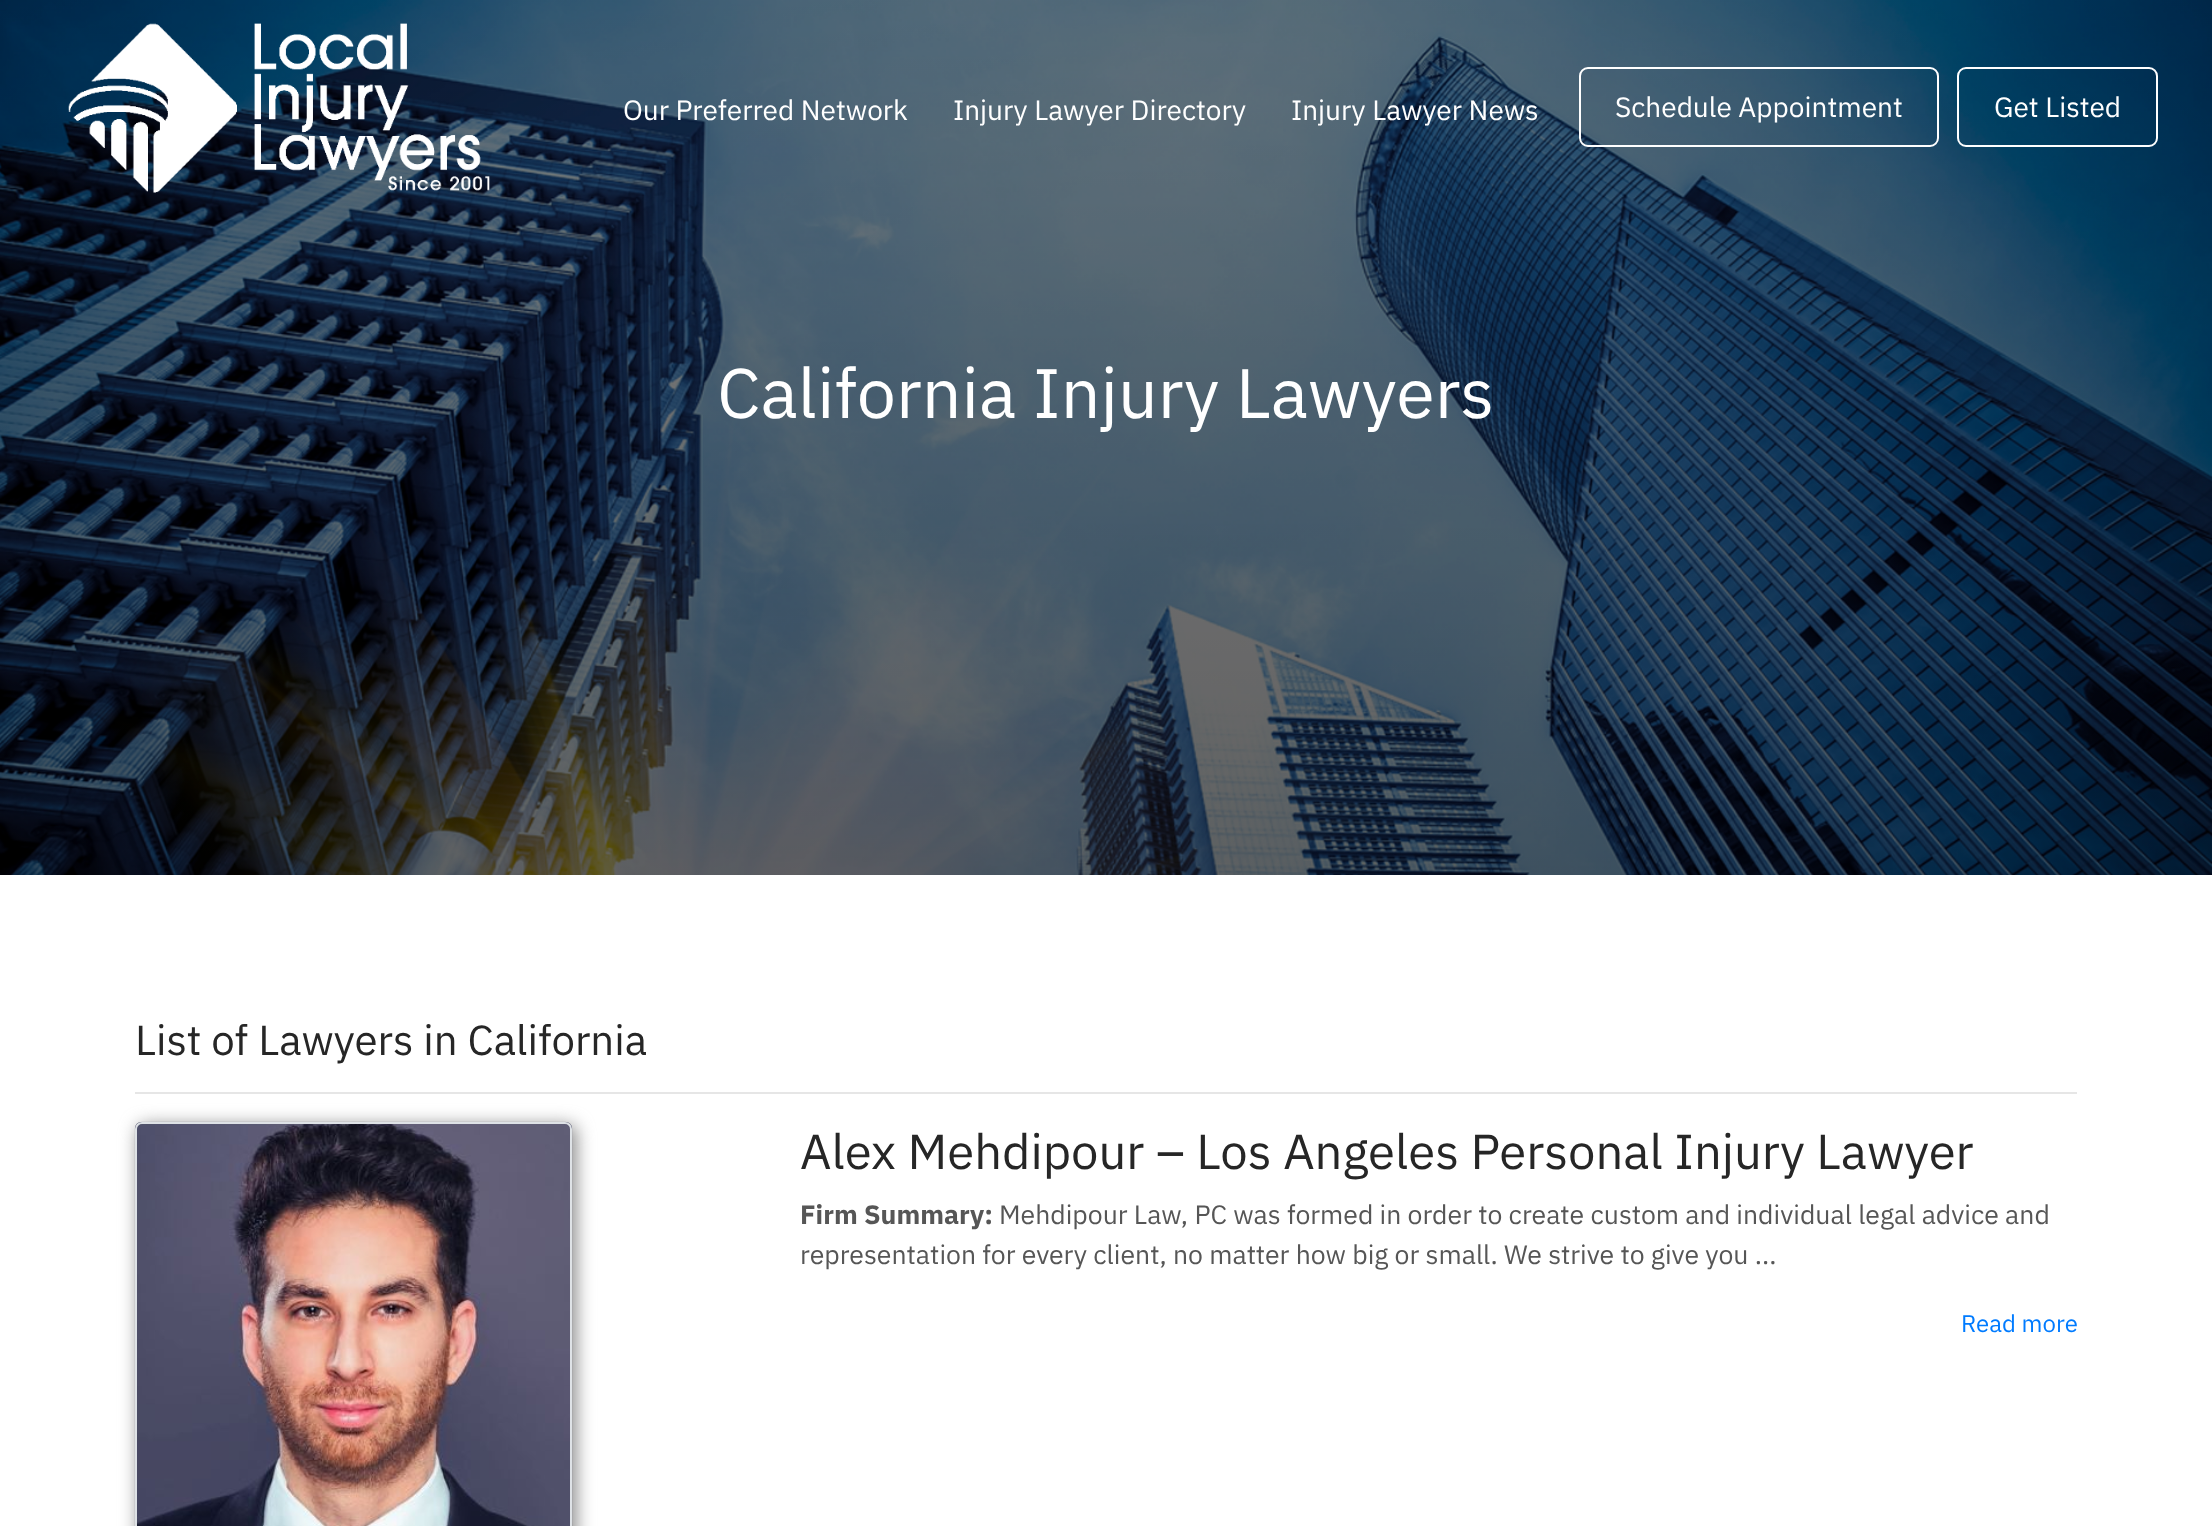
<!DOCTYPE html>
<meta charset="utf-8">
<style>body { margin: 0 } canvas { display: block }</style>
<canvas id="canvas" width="2212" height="1526"></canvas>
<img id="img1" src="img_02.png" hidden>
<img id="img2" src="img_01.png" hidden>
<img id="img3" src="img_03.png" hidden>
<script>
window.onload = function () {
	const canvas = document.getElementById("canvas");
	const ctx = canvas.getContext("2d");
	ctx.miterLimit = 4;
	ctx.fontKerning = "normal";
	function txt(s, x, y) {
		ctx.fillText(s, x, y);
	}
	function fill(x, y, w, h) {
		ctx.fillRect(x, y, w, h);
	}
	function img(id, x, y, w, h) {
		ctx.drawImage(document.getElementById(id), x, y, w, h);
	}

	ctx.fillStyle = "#FFFFFF";
	fill(0, 0, 2212, 1526);
	img("img1", 0, 0, 2212, 875);
	img("img2", 68, 23, 422, 170);
	ctx.beginPath();
	ctx.roundRect(1580, 68, 358, 78, 8);
	ctx.strokeStyle = "#FFFFFF";
	ctx.lineWidth = 2;
	ctx.stroke();
	ctx.beginPath();
	ctx.roundRect(1958, 68, 199, 78, 8);
	ctx.stroke();
	ctx.fillStyle = "#E6E6E6";
	fill(135, 1092, 1942, 2);
	ctx.fillStyle = "#888888";
	ctx.filter = "blur(9px)";
	ctx.beginPath();
	ctx.roundRect(138, 1125, 438, 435, 7);
	ctx.fill();
	ctx.filter = "none";
	img("img3", 134, 1121, 439, 405);
	ctx.beginPath();
	ctx.roundRect(136, 1123, 435, 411, 6);
	ctx.strokeStyle = "#DEE2E6";
	ctx.stroke();
	ctx.font = "28px IBM Plex Sans";
	ctx.fillStyle = "#FFFFFF";
	txt("Our Preferred Network", 623, 120);
	txt("Injury Lawyer Directory", 953, 120);
	txt("Injury Lawyer News", 1291, 120);
	txt("Schedule Appointment", 1615, 117);
	txt("Get Listed", 1994, 117);
	ctx.font = "70px IBM Plex Sans";
	txt("California Injury Lawyers", 717, 418);
	ctx.font = "42px IBM Plex Sans";
	ctx.fillStyle = "#262626";
	txt("List of Lawyers in California", 135, 1055);
	ctx.font = "49px IBM Plex Sans";
	txt("Alex Mehdipour – Los Angeles Personal Injury Lawyer", 800, 1169);
	ctx.font = "bold 26.6px IBM Plex Sans";
	ctx.fillStyle = "#565656";
	txt("Firm Summary:", 800, 1224);
	ctx.font = "26.6px IBM Plex Sans";
	txt("Mehdipour Law, PC was formed in order to create custom and individual legal advice and", 999, 1224);
	txt("representation for every client, no matter how big or small. We strive to give you ...", 800, 1264);
	ctx.font = "24px IBM Plex Sans";
	ctx.fillStyle = "#007BFF";
	txt("Read more", 1961, 1332);
};
</script>
